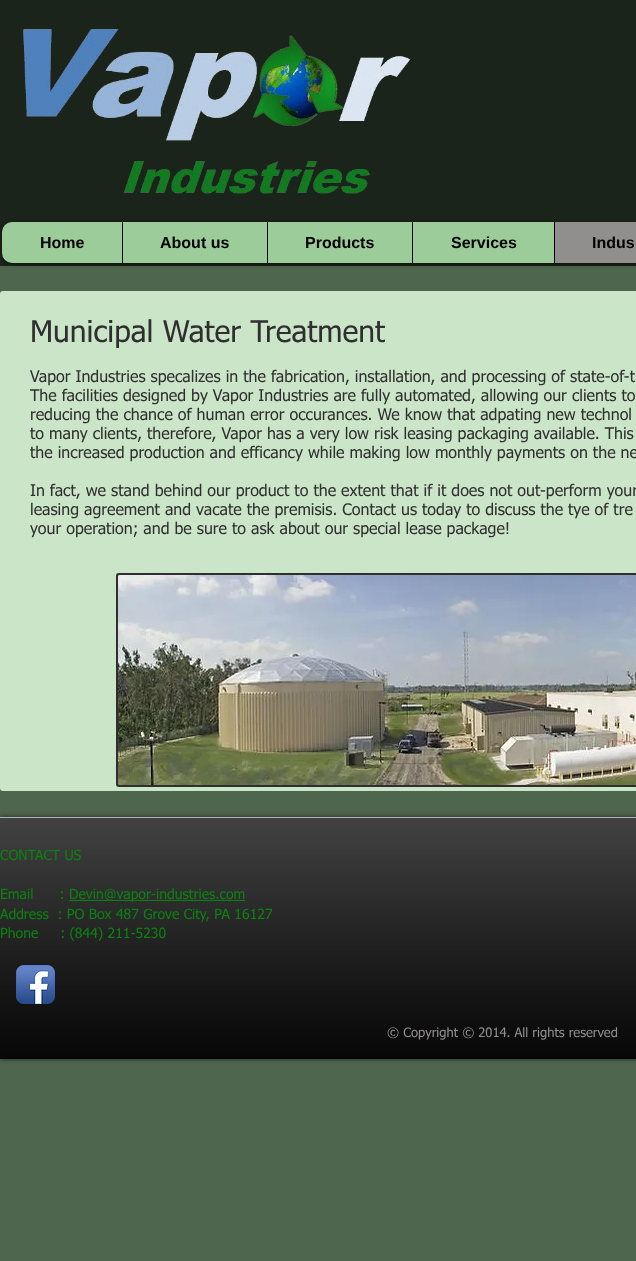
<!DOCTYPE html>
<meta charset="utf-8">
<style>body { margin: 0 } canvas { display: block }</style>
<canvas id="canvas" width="636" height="1261"></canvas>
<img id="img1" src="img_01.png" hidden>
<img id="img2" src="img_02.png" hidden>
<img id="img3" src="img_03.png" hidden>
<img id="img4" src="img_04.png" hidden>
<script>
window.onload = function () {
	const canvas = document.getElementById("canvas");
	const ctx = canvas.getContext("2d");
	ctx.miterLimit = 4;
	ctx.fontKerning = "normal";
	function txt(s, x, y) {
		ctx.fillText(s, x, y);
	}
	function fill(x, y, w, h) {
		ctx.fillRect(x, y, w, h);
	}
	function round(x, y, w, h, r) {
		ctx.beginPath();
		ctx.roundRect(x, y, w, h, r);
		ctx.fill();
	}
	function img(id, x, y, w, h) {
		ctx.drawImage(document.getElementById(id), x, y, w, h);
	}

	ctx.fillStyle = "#4E664D";
	fill(0, 0, 636, 1261);
	ctx.fillStyle = "#1B241B";
	fill(0, 0, 636, 266);
	img("img1", 23, 29, 387, 165);
	ctx.fillStyle = "rgba(0, 0, 0, 0.6)";
	ctx.filter = "blur(2px)";
	ctx.beginPath();
	ctx.roundRect(2, 223, 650, 41, 10);
	ctx.fill();
	ctx.filter = "none";
	ctx.fillStyle = "#9DCC9B";
	round(2, 222, 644, 41, 10);
	ctx.fillStyle = "#000000";
	fill(122, 222, 1, 41);
	fill(267, 222, 1, 41);
	fill(412, 222, 1, 41);
	ctx.fillStyle = "#918E8E";
	fill(555, 222, 81, 41);
	ctx.fillStyle = "#000000";
	fill(554, 222, 1, 41);
	ctx.fillStyle = "#CBE5C9";
	round(0, 291, 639, 500, 3);
	ctx.fillStyle = "#302F2F";
	ctx.beginPath();
	ctx.roundRect(117, 574, 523, 212, 2);
	ctx.fill();
	ctx.strokeStyle = "#302F2F";
	ctx.lineWidth = 2;
	ctx.stroke();
	img("img2", 118, 575, 518, 210);
	ctx.fillStyle = "rgba(0, 0, 0, 0.6)";
	ctx.filter = "blur(2.5px)";
	ctx.beginPath();
	ctx.rect(0, 817, 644, 242);
	ctx.fill();
	ctx.filter = "none";
	ctx.fillStyle = "#000000";
	fill(0, 818, 636, 240);
	img("img3", 0, 818, 636, 240);
	ctx.fillStyle = "#030303";
	fill(0, 1058, 636, 1);
	ctx.fillStyle = "#B3B3B3";
	fill(0, 817, 636, 1);
	ctx.fillStyle = "#0C8111";
	fill(69, 900, 176, 1);
	img("img4", 16, 965, 39, 39);
	ctx.font = "bold 16px Liberation Sans";
	ctx.fillStyle = "#000000";
	txt("Home", 40, 248);
	txt("About us", 160, 248);
	txt("Products", 305, 248);
	txt("Services", 451, 248);
	txt("Indus", 592, 248);
	ctx.font = "30px tahoma";
	ctx.fillStyle = "#302F2F";
	txt("Municipal Water Treatment", 30, 342);
	ctx.font = "16px tahoma";
	txt("Vapor Industries specalizes in the fabrication, installation, and processing of state-of-t", 30, 382);
	txt("The facilities designed by Vapor Industries are fully automated, allowing our clients to", 30, 401);
	txt("reducing the chance of human error occurances. We know that adpating new technol", 30, 420);
	txt("to many clients, therefore, Vapor has a very low risk leasing packaging available. This", 30, 439);
	txt("the increased production and efficancy while making low monthly payments on the ne", 30, 458);
	txt("In fact, we stand behind our product to the extent that if it does not out-perform your", 30, 496);
	txt("leasing agreement and vacate the premisis. Contact us today to discuss the tye of tre", 30, 515);
	txt("your operation; and be sure to ask about our special lease package!", 30, 534);
	ctx.font = "14px tahoma";
	ctx.fillStyle = "#0C8111";
	txt("CONTACT US", 0, 860);
	txt("Email      :", 0, 899);
	txt("Devin@vapor-industries.com", 69, 899);
	txt("Address  : PO Box 487 Grove City, PA 16127", 0, 919);
	txt("Phone     : (844) 211-5230", 0, 938);
	ctx.font = "13px tahoma";
	ctx.fillStyle = "#918E8E";
	txt("© Copyright © 2014. All rights reserved", 387, 1037);
};
</script>
